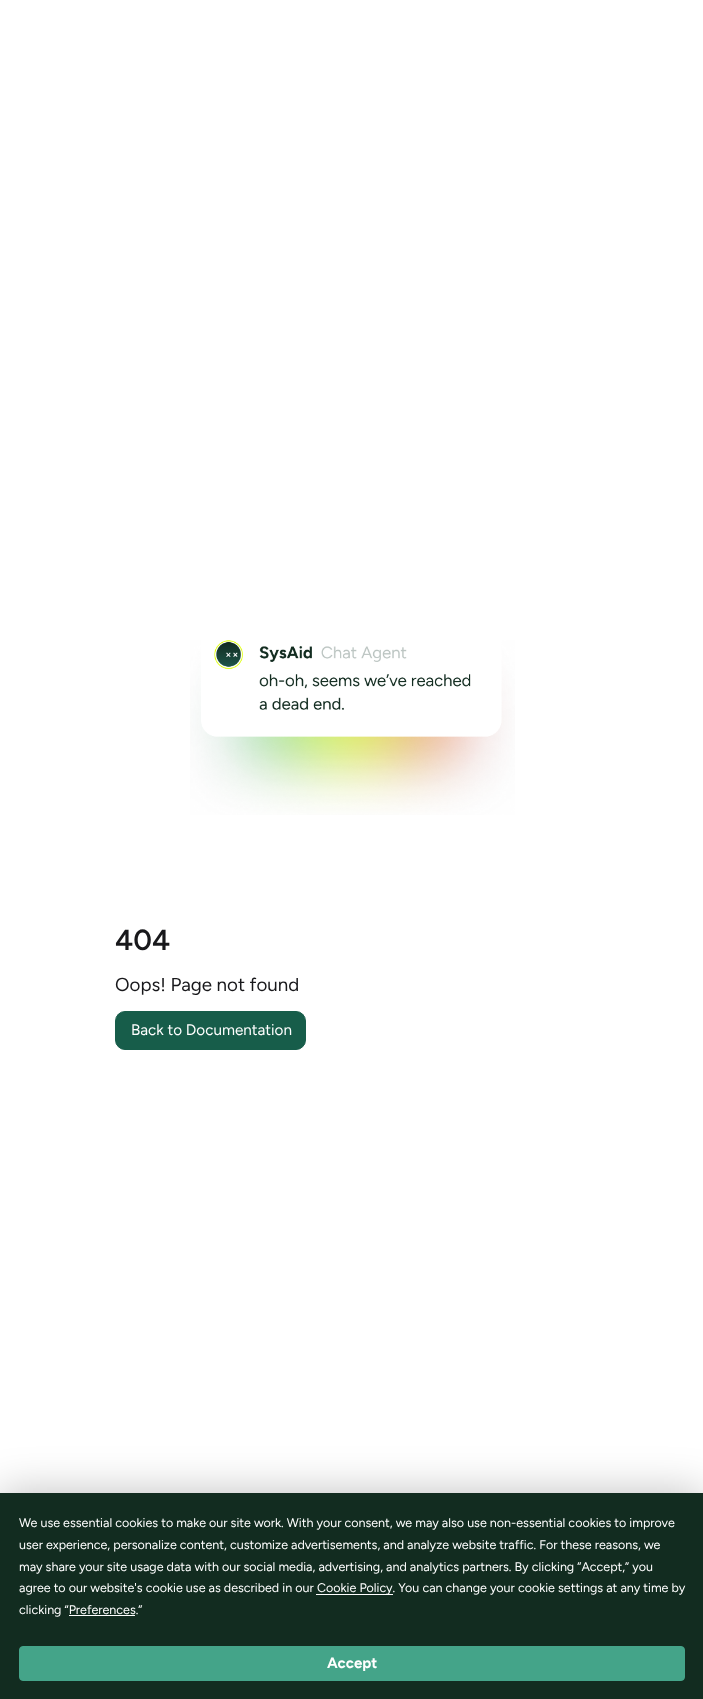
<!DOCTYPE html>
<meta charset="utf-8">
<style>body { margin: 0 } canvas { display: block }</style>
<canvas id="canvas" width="703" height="1699"></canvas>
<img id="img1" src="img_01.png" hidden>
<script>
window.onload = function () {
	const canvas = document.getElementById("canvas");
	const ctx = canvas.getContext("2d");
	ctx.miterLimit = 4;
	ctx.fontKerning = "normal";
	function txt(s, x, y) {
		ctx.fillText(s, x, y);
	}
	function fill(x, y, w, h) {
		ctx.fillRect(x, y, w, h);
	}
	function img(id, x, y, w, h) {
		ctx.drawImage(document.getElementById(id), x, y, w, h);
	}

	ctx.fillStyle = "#FFFFFF";
	fill(0, 0, 703, 1699);
	img("img1", 190, 640, 325, 175);
	ctx.fillStyle = "#175D4A";
	ctx.beginPath();
	ctx.roundRect(115.5, 1011.5, 190, 38, 9.5);
	ctx.fill();
	ctx.strokeStyle = "#175D4A";
	ctx.stroke();
	ctx.fillStyle = "rgba(0, 0, 0, 0.25)";
	ctx.filter = "blur(22px)";
	ctx.beginPath();
	ctx.rect(0, 1493, 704, 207);
	ctx.fill();
	ctx.filter = "none";
	ctx.fillStyle = "#122C20";
	fill(0, 1493, 703, 206);
	ctx.fillStyle = "#FFFFFF";
	fill(316, 1594, 77, 1);
	fill(69, 1615, 66, 1);
	ctx.fillStyle = "#44A489";
	ctx.beginPath();
	ctx.roundRect(19.5, 1646.5, 665, 34, 3.5);
	ctx.fill();
	ctx.strokeStyle = "#44A489";
	ctx.stroke();
	ctx.font = "600 29px Figtree";
	ctx.fillStyle = "#18181B";
	txt("404", 115, 950);
	ctx.font = "18.75px Figtree";
	txt("Oops! Page not found", 115, 991);
	ctx.font = "15.25px Figtree";
	ctx.fillStyle = "#FFFFFF";
	txt("Back to Documentation", 131, 1035);
	ctx.font = "12.5px Figtree";
	txt("We use essential cookies to make our site work. With your consent, we may also use non-essential cookies to improve", 19, 1527);
	txt("user experience, personalize content, customize advertisements, and analyze website traffic. For these reasons, we", 19, 1549);
	txt("may share your site usage data with our social media, advertising, and analytics partners. By clicking ”Accept,” you", 19, 1571);
	txt("agree to our website's cookie use as described in our", 19, 1592);
	txt("Cookie Policy. You can change your cookie settings at any time by", 317, 1592);
	txt("clicking “Preferences.”", 19, 1614);
	ctx.font = "bold 15px Figtree";
	txt("Accept", 327, 1668);
};
</script>
